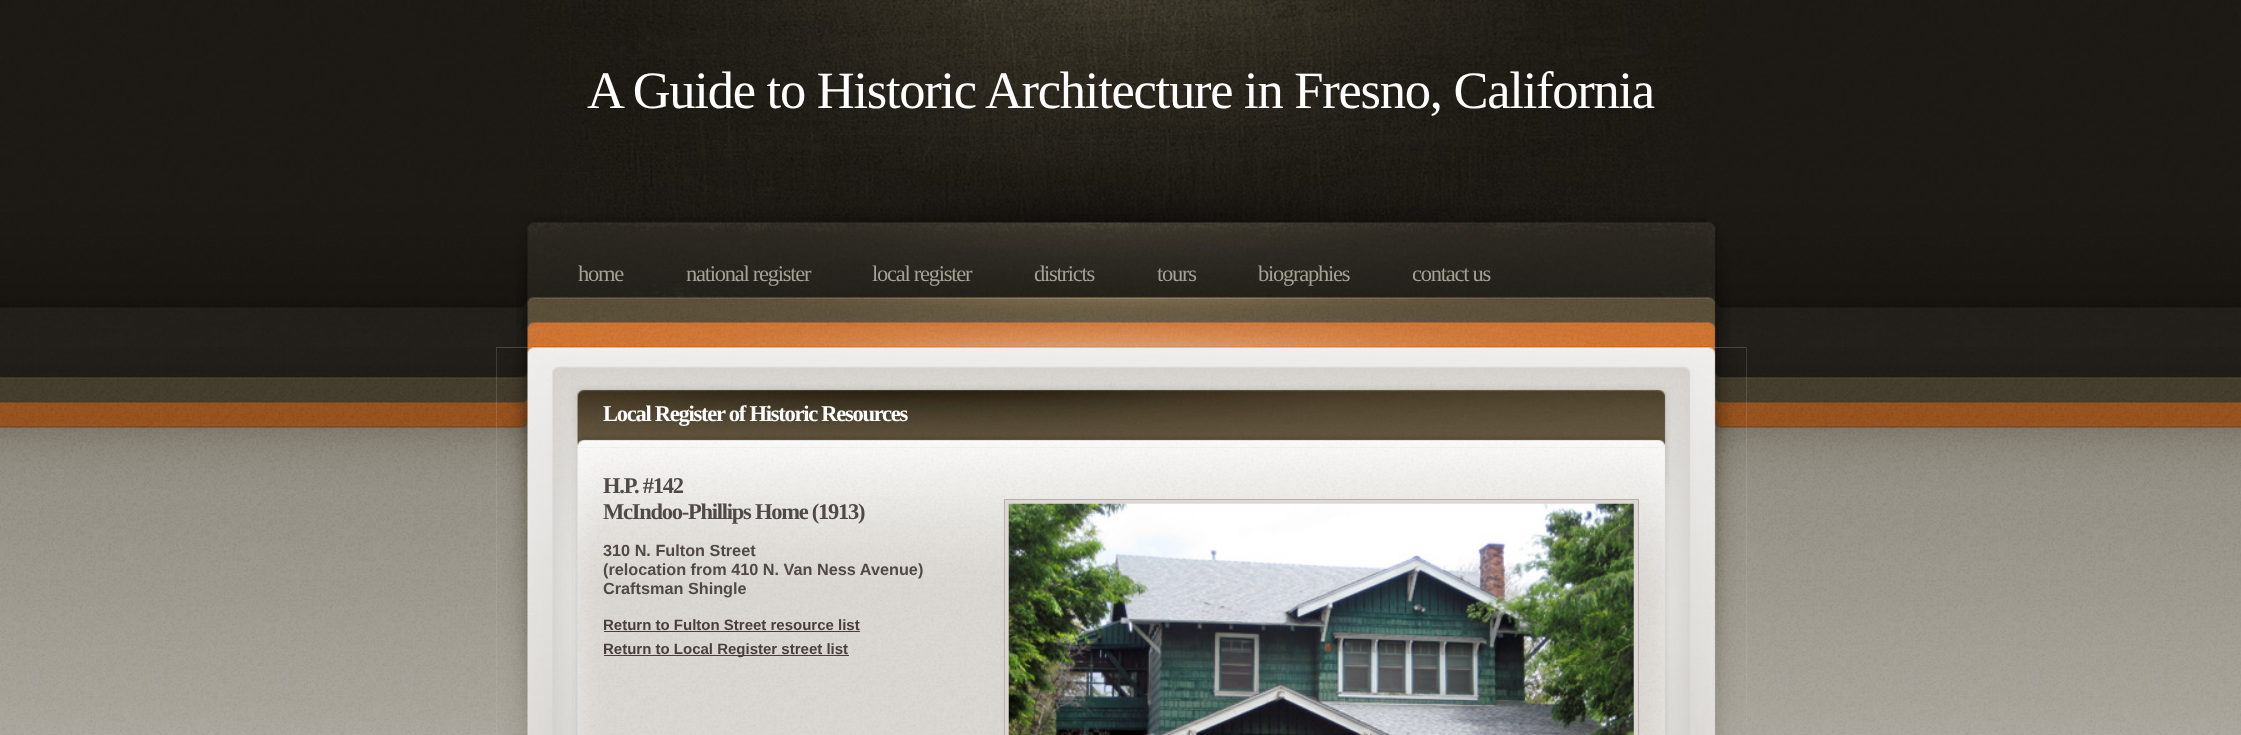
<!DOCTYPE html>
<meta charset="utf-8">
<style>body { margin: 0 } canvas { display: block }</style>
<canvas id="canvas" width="2241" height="735"></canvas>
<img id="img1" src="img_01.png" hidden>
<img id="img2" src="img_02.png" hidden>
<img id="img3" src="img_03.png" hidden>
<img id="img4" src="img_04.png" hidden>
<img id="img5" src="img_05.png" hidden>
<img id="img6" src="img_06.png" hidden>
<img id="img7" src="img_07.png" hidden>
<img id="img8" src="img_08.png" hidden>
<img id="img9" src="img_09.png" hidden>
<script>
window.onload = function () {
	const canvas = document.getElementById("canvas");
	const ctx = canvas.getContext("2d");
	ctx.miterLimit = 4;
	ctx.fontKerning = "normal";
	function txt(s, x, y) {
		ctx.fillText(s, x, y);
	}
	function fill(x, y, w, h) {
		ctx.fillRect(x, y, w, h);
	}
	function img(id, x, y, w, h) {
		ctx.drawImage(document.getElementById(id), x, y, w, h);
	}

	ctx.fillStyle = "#FFFFFF";
	fill(0, 0, 2241, 735);
	img("img1", 0, 0, 2241, 735);
	img("img2", 524, 0, 1183, 223);
	img("img3", 516, 222, 1215, 126);
	img("img4", 496, 347, 1251, 388);
	img("img5", 496, 347, 1251, 388);
	img("img6", 572, 385, 1098, 350);
	img("img7", 572, 385, 1098, 63);
	img("img8", 572, 447, 1098, 288);
	ctx.fillStyle = "#DDD7D5";
	ctx.beginPath();
	ctx.rect(1004.5, 499.5, 634, 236);
	ctx.fill();
	ctx.strokeStyle = "#BAADAA";
	ctx.stroke();
	img("img9", 1008, 503, 626, 232);
	ctx.fillStyle = "#493E3C";
	fill(604, 631, 256, 1);
	fill(604, 655, 245, 1);
	ctx.letterSpacing = "-1.25px";
	ctx.font = "52.5px Liberation Serif";
	ctx.fillStyle = "#FFFFFF";
	txt("A Guide to Historic Architecture in Fresno, California", 587, 108);
	ctx.font = "22.5px Liberation Serif";
	ctx.fillStyle = "#A5A095";
	txt("home", 578, 281);
	txt("national register", 686, 281);
	txt("local register", 872, 281);
	txt("districts", 1034, 281);
	txt("tours", 1157, 281);
	txt("biographies", 1258, 281);
	txt("contact us", 1412, 281);
	ctx.font = "bold 22.5px Liberation Serif";
	ctx.fillStyle = "#FFFFFF";
	txt("Local Register of Historic Resources", 603, 421);
	ctx.fillStyle = "#504947";
	txt("H.P. #142", 603, 493);
	txt("McIndoo-Phillips Home (1913)", 603, 519);
	ctx.letterSpacing = "0px";
	ctx.font = "bold 16.25px Liberation Sans";
	txt("310 N. Fulton Street", 603, 556);
	txt("(relocation from 410 N. Van Ness Avenue)", 603, 575);
	txt("Craftsman Shingle", 603, 594);
	ctx.font = "bold 15px Liberation Sans";
	ctx.fillStyle = "#493E3C";
	txt("Return to Fulton Street resource list", 603, 630);
	txt("Return to Local Register street list", 603, 654);
};
</script>
